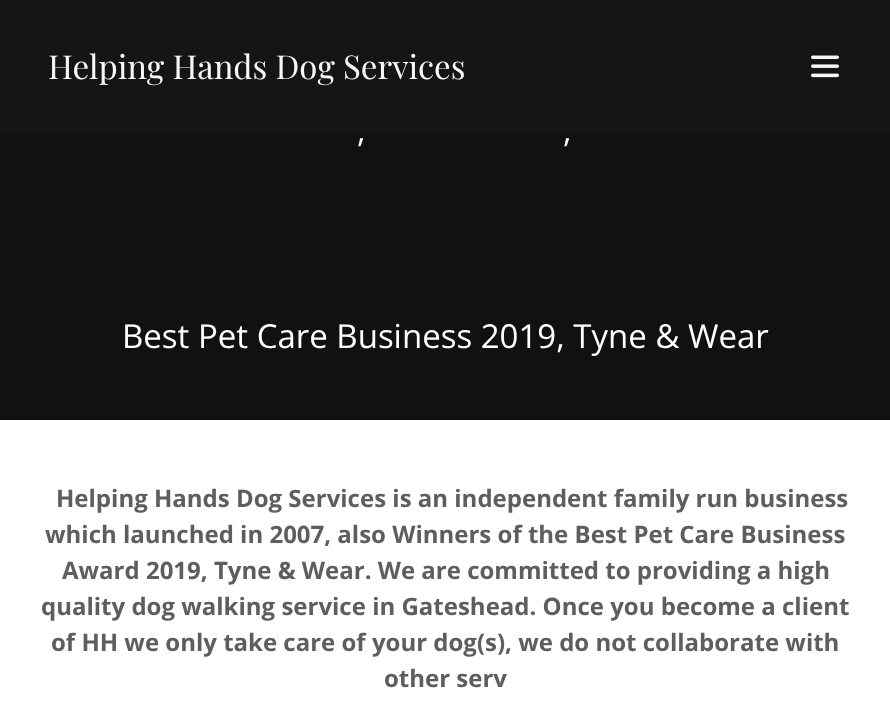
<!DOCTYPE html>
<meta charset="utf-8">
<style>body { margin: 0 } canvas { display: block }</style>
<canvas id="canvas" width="890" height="708"></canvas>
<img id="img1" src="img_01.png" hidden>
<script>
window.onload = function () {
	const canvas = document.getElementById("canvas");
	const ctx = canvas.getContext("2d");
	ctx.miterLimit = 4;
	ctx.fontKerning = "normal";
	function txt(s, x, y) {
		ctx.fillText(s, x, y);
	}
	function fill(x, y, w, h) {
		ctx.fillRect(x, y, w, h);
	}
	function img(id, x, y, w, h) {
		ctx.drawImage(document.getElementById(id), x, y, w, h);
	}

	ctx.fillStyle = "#FFFFFF";
	fill(0, 0, 890, 708);
	ctx.fillStyle = "#111111";
	fill(0, 0, 890, 420);
	ctx.fillStyle = "rgba(22, 22, 22, 0.9)";
	fill(0, 0, 890, 134);
	img("img1", 811, 55, 28, 23);
	ctx.font = "33px Playfair Display";
	ctx.fillStyle = "#F7F7F7";
	txt("Helping Hands Dog Services", 48, 79);
	ctx.font = "33px Open Sans";
	ctx.fillStyle = "#FFFFFF";
	txt(",", 357, 142);
	txt(",", 563, 142);
	txt("Best Pet Care Business 2019, Tyne & Wear", 122, 348);
	ctx.font = "bold 24px Open Sans";
	ctx.fillStyle = "#5E5E5E";
	txt("Helping Hands Dog Services is an independent family run business", 56, 507);
	txt("which launched in 2007, also Winners of the Best Pet Care Business", 45, 543);
	txt("Award 2019, Tyne & Wear. We are committed to providing a high", 62, 579);
	txt("quality dog walking service in Gateshead. Once you become a client", 41, 615);
	txt("of HH we only take care of your dog(s), we do not collaborate with", 51, 651);
	txt("other serv", 384, 687);
};
</script>
